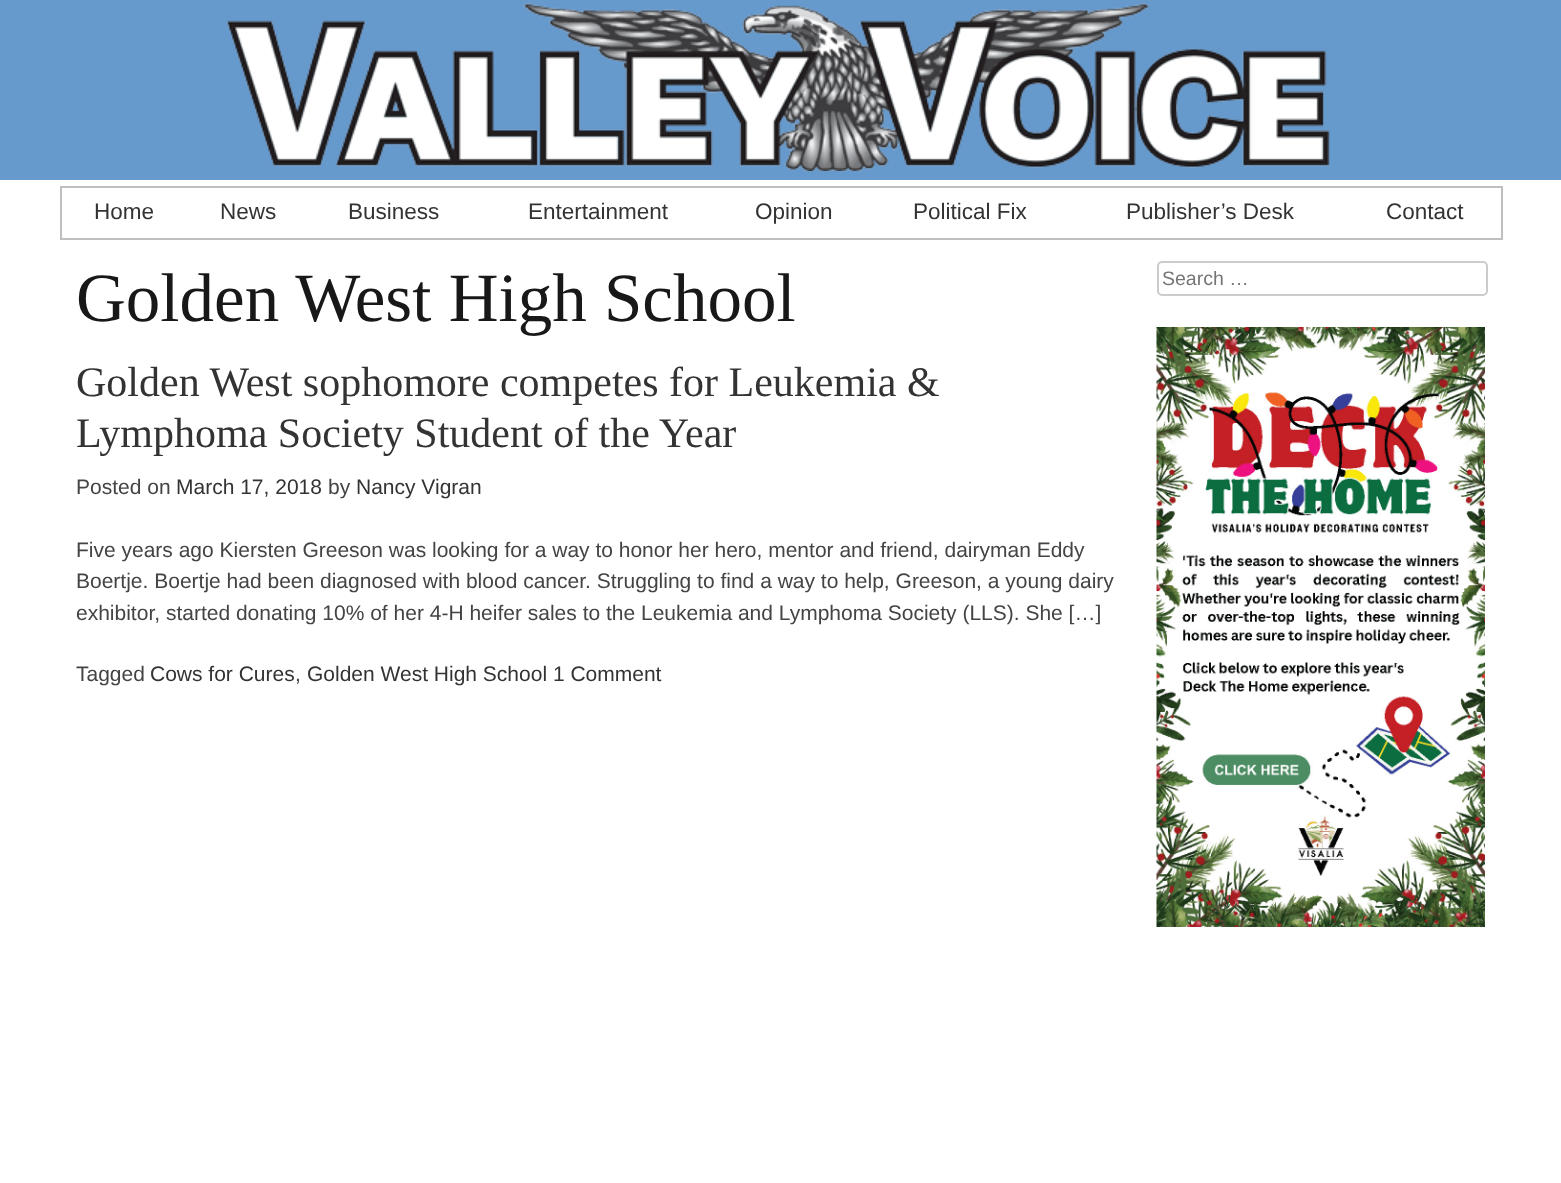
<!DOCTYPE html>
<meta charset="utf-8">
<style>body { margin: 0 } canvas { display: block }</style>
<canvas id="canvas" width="1561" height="1183"></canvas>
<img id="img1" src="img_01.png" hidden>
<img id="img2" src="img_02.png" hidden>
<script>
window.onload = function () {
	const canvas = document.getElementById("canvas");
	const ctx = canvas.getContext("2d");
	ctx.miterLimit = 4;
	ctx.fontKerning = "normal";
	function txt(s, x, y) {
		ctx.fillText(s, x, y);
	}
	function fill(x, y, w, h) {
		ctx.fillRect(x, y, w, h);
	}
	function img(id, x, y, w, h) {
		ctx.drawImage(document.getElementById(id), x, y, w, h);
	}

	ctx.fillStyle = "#FFFFFF";
	fill(0, 0, 1561, 1183);
	ctx.fillStyle = "#6699CC";
	fill(0, 0, 1561, 180);
	img("img1", 226, 3, 1104, 168);
	ctx.strokeStyle = "#BFBFBF";
	ctx.lineWidth = 2;
	ctx.strokeRect(61, 187, 1441, 52);
	ctx.beginPath();
	ctx.roundRect(1158, 262, 329, 33, 4);
	ctx.strokeStyle = "#CCCCCC";
	ctx.stroke();
	img("img2", 1156, 327, 329, 600);
	ctx.font = "22.5px Liberation Sans";
	ctx.fillStyle = "#333333";
	txt("Home", 94, 219);
	txt("News", 220, 219);
	txt("Business", 348, 219);
	txt("Entertainment", 528, 219);
	txt("Opinion", 755, 219);
	txt("Political Fix", 913, 219);
	txt("Publisher’s Desk", 1126, 219);
	txt("Contact", 1386, 219);
	ctx.font = "69px Liberation Serif";
	ctx.fillStyle = "#181818";
	txt("Golden West High School", 76, 321);
	ctx.font = "42px Liberation Serif";
	ctx.fillStyle = "#333333";
	txt("Golden West sophomore competes for Leukemia &", 76, 396);
	txt("Lymphoma Society Student of the Year", 76, 447);
	ctx.font = "21px Liberation Sans";
	ctx.fillStyle = "#444444";
	txt("Posted on", 76, 494);
	ctx.fillStyle = "#333333";
	txt("March 17, 2018", 176, 494);
	ctx.fillStyle = "#444444";
	txt("by", 328, 494);
	ctx.fillStyle = "#333333";
	txt("Nancy Vigran", 356, 494);
	ctx.fillStyle = "#444444";
	txt("Five years ago Kiersten Greeson was looking for a way to honor her hero, mentor and friend, dairyman Eddy", 76, 557);
	txt("Boertje. Boertje had been diagnosed with blood cancer. Struggling to find a way to help, Greeson, a young dairy", 76, 588);
	txt("exhibitor, started donating 10% of her 4-H heifer sales to the Leukemia and Lymphoma Society (LLS). She […]", 76, 620);
	txt("Tagged", 76, 681);
	ctx.fillStyle = "#333333";
	txt("Cows for Cures", 150, 681);
	ctx.fillStyle = "#444444";
	txt(",", 295, 681);
	ctx.fillStyle = "#333333";
	txt("Golden West High School 1 Comment", 307, 681);
	ctx.font = "19.5px Liberation Sans";
	ctx.fillStyle = "#757575";
	txt("Search …", 1162, 285);
};
</script>
